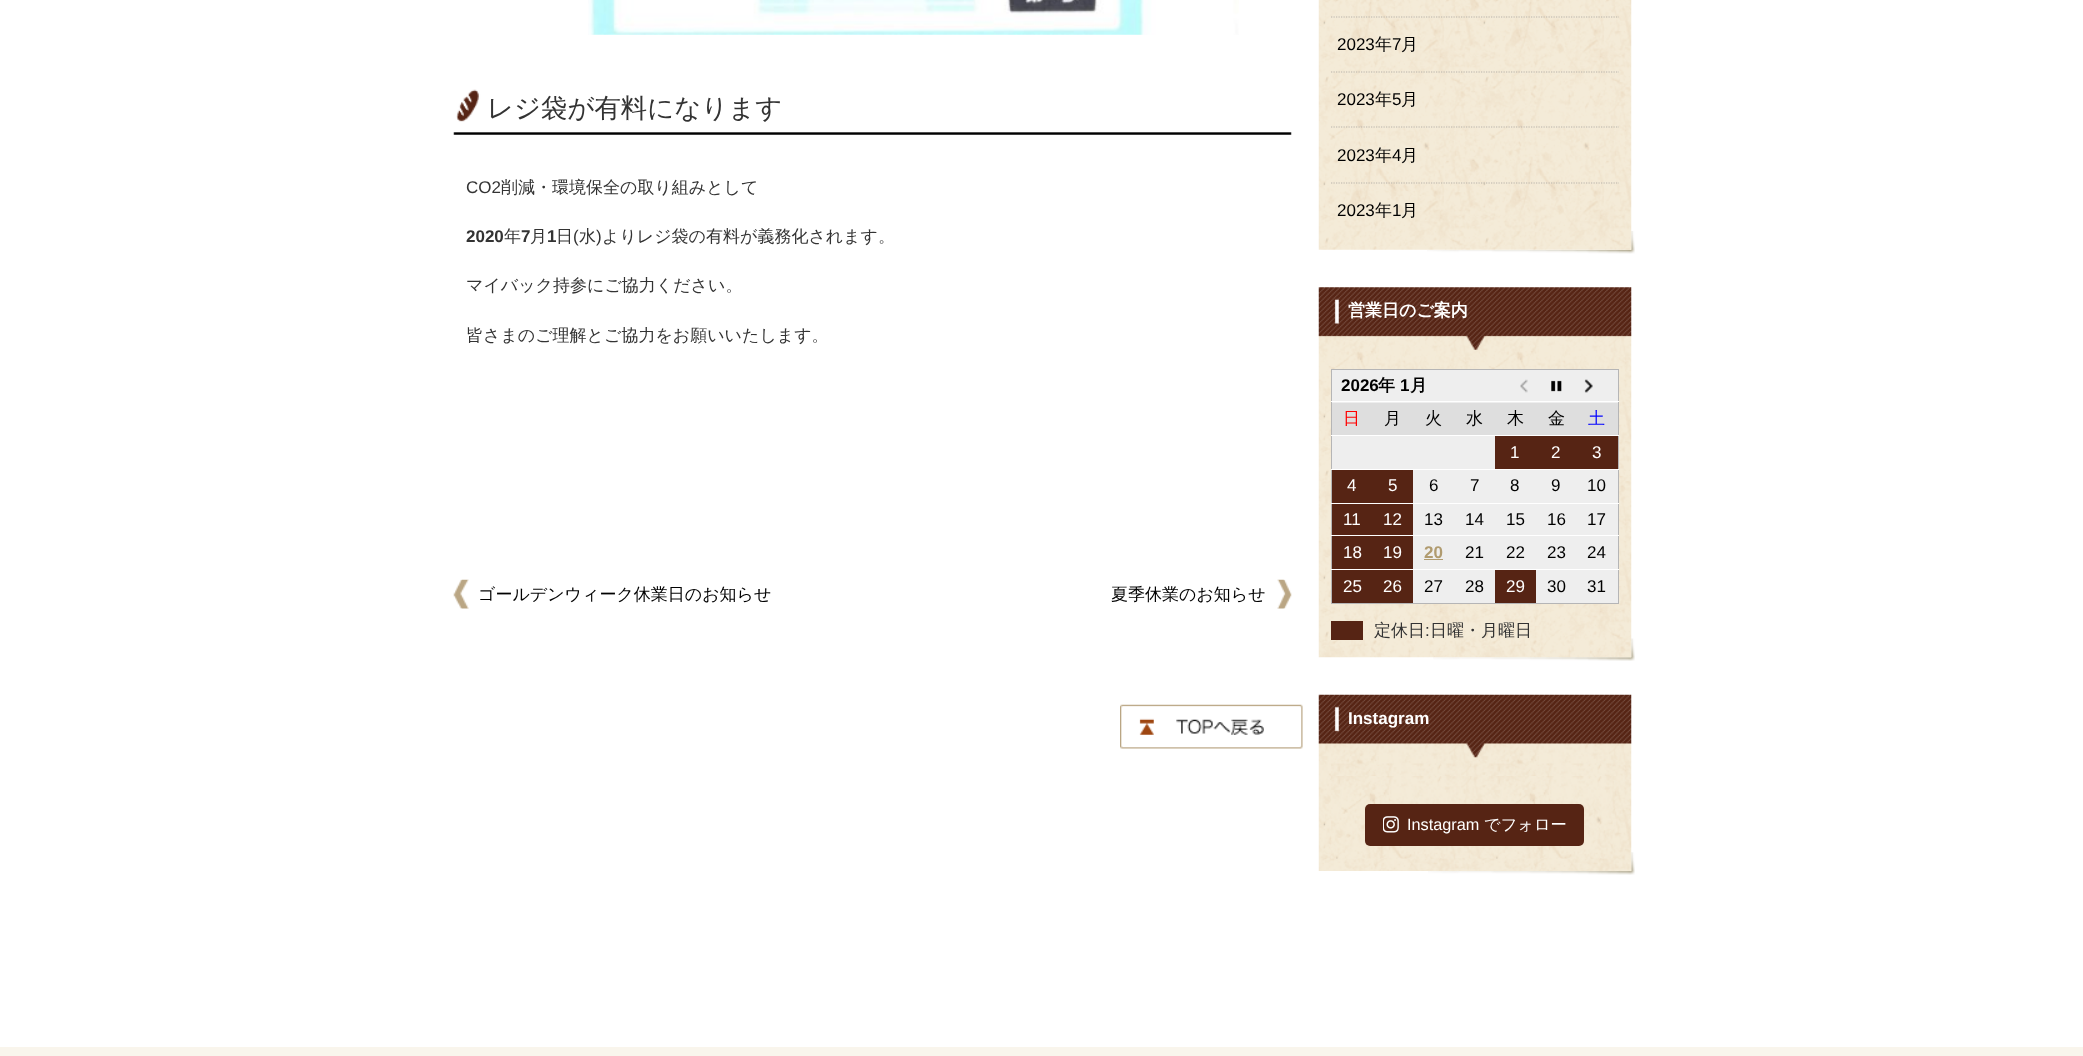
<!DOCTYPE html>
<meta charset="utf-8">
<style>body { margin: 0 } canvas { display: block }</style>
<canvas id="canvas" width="2083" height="1056"></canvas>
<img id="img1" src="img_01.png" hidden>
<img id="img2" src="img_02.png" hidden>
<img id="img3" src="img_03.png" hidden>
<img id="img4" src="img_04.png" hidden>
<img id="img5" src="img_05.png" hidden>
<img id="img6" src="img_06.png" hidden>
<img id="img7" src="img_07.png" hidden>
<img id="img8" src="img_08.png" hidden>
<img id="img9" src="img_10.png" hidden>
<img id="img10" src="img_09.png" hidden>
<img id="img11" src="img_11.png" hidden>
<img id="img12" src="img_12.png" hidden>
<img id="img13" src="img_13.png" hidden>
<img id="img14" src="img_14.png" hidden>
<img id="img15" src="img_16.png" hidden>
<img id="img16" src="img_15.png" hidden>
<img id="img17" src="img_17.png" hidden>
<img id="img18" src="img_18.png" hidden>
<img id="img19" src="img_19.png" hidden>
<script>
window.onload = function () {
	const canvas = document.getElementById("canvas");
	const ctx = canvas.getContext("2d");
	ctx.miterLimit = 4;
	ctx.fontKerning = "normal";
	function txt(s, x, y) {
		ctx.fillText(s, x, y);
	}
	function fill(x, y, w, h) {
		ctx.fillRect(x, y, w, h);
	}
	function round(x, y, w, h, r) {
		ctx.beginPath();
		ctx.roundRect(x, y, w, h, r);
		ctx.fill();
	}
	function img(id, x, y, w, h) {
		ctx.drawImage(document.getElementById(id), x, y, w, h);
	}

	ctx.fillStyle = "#FFFFFF";
	fill(0, 0, 2083, 1056);
	img("img1", 588, 0, 651, 35);
	img("img2", 453, 89, 839, 46);
	img("img3", 453, 579, 16, 30);
	img("img4", 1277, 579, 15, 30);
	img("img5", 1120, 704, 183, 45);
	img("img6", 1427, 231, 208, 23);
	img("img7", 1318, 0, 314, 250);
	ctx.beginPath();
	ctx.moveTo(1331, 17);
	ctx.lineTo(1619, 17);
	ctx.strokeStyle = "#B9B4AB";
	ctx.lineWidth = 1.2;
	ctx.setLineDash([1.25, 1.25]);
	ctx.stroke();
	ctx.beginPath();
	ctx.moveTo(1331, 72);
	ctx.lineTo(1619, 72);
	ctx.stroke();
	ctx.beginPath();
	ctx.moveTo(1331, 127);
	ctx.lineTo(1619, 127);
	ctx.stroke();
	ctx.beginPath();
	ctx.moveTo(1331, 183);
	ctx.lineTo(1619, 183);
	ctx.stroke();
	img("img8", 1433, 638, 202, 23);
	img("img9", 1318, 334, 314, 324);
	img("img10", 1318, 287, 314, 63);
	ctx.fillStyle = "#B5B5B6";
	fill(1331, 369, 288, 1);
	fill(1618, 369, 1, 235);
	fill(1331, 603, 288, 1);
	fill(1331, 369, 1, 235);
	ctx.fillStyle = "#EEEEEE";
	fill(1332, 370, 286, 33);
	img("img11", 1520, 379, 8, 14);
	img("img12", 1551, 380, 11, 12);
	img("img13", 1584, 379, 9, 14);
	ctx.fillStyle = "#FFFFFF";
	fill(1331, 401, 288, 1);
	ctx.fillStyle = "#DEDEDE";
	fill(1332, 403, 286, 32);
	ctx.fillStyle = "#FFFFFF";
	fill(1331, 435, 288, 1);
	ctx.fillStyle = "#EEEEEE";
	fill(1332, 436, 163, 33);
	ctx.fillStyle = "#562414";
	fill(1495, 436, 123, 33);
	ctx.fillStyle = "#FFFFFF";
	fill(1331, 469, 288, 1);
	ctx.fillStyle = "#562414";
	fill(1332, 470, 81, 33);
	ctx.fillStyle = "#EEEEEE";
	fill(1413, 470, 205, 33);
	ctx.fillStyle = "#FFFFFF";
	fill(1331, 503, 288, 1);
	ctx.fillStyle = "#562414";
	fill(1332, 504, 81, 31);
	ctx.fillStyle = "#EEEEEE";
	fill(1413, 504, 205, 31);
	ctx.fillStyle = "#FFFFFF";
	fill(1331, 535, 288, 1);
	ctx.fillStyle = "#562414";
	fill(1332, 536, 81, 33);
	ctx.fillStyle = "#EEEEEE";
	fill(1413, 536, 205, 33);
	ctx.fillStyle = "#B09B6F";
	fill(1424, 559, 19, 1);
	ctx.fillStyle = "#FFFFFF";
	fill(1331, 569, 288, 1);
	ctx.fillStyle = "#562414";
	fill(1332, 570, 81, 33);
	ctx.fillStyle = "#EEEEEE";
	fill(1413, 570, 82, 33);
	ctx.fillStyle = "#562414";
	fill(1495, 570, 41, 33);
	ctx.fillStyle = "#EEEEEE";
	fill(1536, 570, 82, 33);
	ctx.fillStyle = "#562414";
	fill(1331, 621, 32, 19);
	img("img14", 1428, 852, 207, 23);
	img("img15", 1318, 742, 314, 129);
	img("img16", 1318, 694, 314, 64);
	img("img17", 1331, 763, 285, 13);
	img("img18", 1331, 776, 282, 83);
	round(1365, 804, 219, 42, 5);
	img("img19", 1383, 816, 16, 17);
	ctx.fillStyle = "#F9F5EC";
	fill(0, 1047, 2083, 9);
	ctx.font = "500 26.4px WenQuanYi Zen Hei";
	ctx.fillStyle = "#333333";
	txt("レジ袋が有料になります", 487, 117);
	ctx.font = "17px Liberation Sans";
	txt("CO2", 466, 193);
	ctx.font = "500 17px WenQuanYi Zen Hei";
	txt("削減・環境保全の取り組みとして", 501, 193);
	ctx.font = "bold 17px Liberation Sans";
	txt("2020", 466, 242);
	ctx.font = "500 17px WenQuanYi Zen Hei";
	txt("年", 504, 242);
	ctx.font = "bold 17px Liberation Sans";
	txt("7", 521, 242);
	ctx.font = "500 17px WenQuanYi Zen Hei";
	txt("月", 530, 242);
	ctx.font = "bold 17px Liberation Sans";
	txt("1", 547, 242);
	ctx.font = "500 17px WenQuanYi Zen Hei";
	txt("日", 556, 242);
	ctx.font = "17px Liberation Sans";
	txt("(", 573, 242);
	ctx.font = "500 17px WenQuanYi Zen Hei";
	txt("水", 579, 242);
	ctx.font = "17px Liberation Sans";
	txt(")", 596, 242);
	ctx.font = "500 17px WenQuanYi Zen Hei";
	txt("よりレジ袋の有料が義務化されます。", 602, 242);
	txt("マイバック持参にご協力ください。", 466, 291);
	txt("皆さまのご理解とご協力をお願いいたします。", 466, 341);
	ctx.fillStyle = "#000000";
	txt("ゴールデンウィーク休業日のお知らせ", 478, 600);
	txt("夏季休業のお知らせ", 1111, 600);
	ctx.font = "17px Liberation Sans";
	txt("2023", 1337, 50);
	ctx.font = "500 17px WenQuanYi Zen Hei";
	txt("年", 1375, 50);
	ctx.font = "17px Liberation Sans";
	txt("7", 1392, 50);
	ctx.font = "500 17px WenQuanYi Zen Hei";
	txt("月", 1401, 50);
	ctx.font = "17px Liberation Sans";
	txt("2023", 1337, 105);
	ctx.font = "500 17px WenQuanYi Zen Hei";
	txt("年", 1375, 105);
	ctx.font = "17px Liberation Sans";
	txt("5", 1392, 105);
	ctx.font = "500 17px WenQuanYi Zen Hei";
	txt("月", 1401, 105);
	ctx.font = "17px Liberation Sans";
	txt("2023", 1337, 161);
	ctx.font = "500 17px WenQuanYi Zen Hei";
	txt("年", 1375, 161);
	ctx.font = "17px Liberation Sans";
	txt("4", 1392, 161);
	ctx.font = "500 17px WenQuanYi Zen Hei";
	txt("月", 1401, 161);
	ctx.font = "17px Liberation Sans";
	txt("2023", 1337, 216);
	ctx.font = "500 17px WenQuanYi Zen Hei";
	txt("年", 1375, 216);
	ctx.font = "17px Liberation Sans";
	txt("1", 1392, 216);
	ctx.font = "500 17px WenQuanYi Zen Hei";
	txt("月", 1401, 216);
	ctx.font = "bold 17px WenQuanYi Zen Hei";
	ctx.fillStyle = "#FFFFFF";
	txt("営業日のご案内", 1348, 316);
	ctx.font = "bold 17px Liberation Sans";
	ctx.fillStyle = "#000000";
	txt("2026", 1341, 391);
	ctx.font = "bold 17px WenQuanYi Zen Hei";
	txt("年", 1378, 391);
	ctx.font = "bold 17px Liberation Sans";
	txt("1", 1400, 391);
	ctx.font = "bold 17px WenQuanYi Zen Hei";
	txt("月", 1410, 391);
	ctx.font = "500 17px WenQuanYi Zen Hei";
	ctx.fillStyle = "#FF0000";
	txt("日", 1343, 424);
	ctx.fillStyle = "#000000";
	txt("月", 1384, 424);
	txt("火", 1425, 424);
	txt("水", 1466, 424);
	txt("木", 1507, 424);
	txt("金", 1548, 424);
	ctx.fillStyle = "#0000FF";
	txt("土", 1588, 424);
	ctx.font = "17px Liberation Sans";
	ctx.fillStyle = "#FFFFFF";
	txt("1", 1510, 458);
	txt("2", 1551, 458);
	txt("3", 1592, 458);
	txt("4", 1347, 491);
	txt("5", 1388, 491);
	ctx.fillStyle = "#000000";
	txt("6", 1429, 491);
	txt("7", 1470, 491);
	txt("8", 1510, 491);
	txt("9", 1551, 491);
	txt("10", 1587, 491);
	ctx.fillStyle = "#FFFFFF";
	txt("11", 1343, 525);
	txt("12", 1383, 525);
	ctx.fillStyle = "#000000";
	txt("13", 1424, 525);
	txt("14", 1465, 525);
	txt("15", 1506, 525);
	txt("16", 1547, 525);
	txt("17", 1587, 525);
	ctx.fillStyle = "#FFFFFF";
	txt("18", 1343, 558);
	txt("19", 1383, 558);
	ctx.font = "bold 17px Liberation Sans";
	ctx.fillStyle = "#B09B6F";
	txt("20", 1424, 558);
	ctx.font = "17px Liberation Sans";
	ctx.fillStyle = "#000000";
	txt("21", 1465, 558);
	txt("22", 1506, 558);
	txt("23", 1547, 558);
	txt("24", 1587, 558);
	ctx.fillStyle = "#FFFFFF";
	txt("25", 1343, 592);
	txt("26", 1383, 592);
	ctx.fillStyle = "#000000";
	txt("27", 1424, 592);
	txt("28", 1465, 592);
	ctx.fillStyle = "#FFFFFF";
	txt("29", 1506, 592);
	ctx.fillStyle = "#000000";
	txt("30", 1547, 592);
	txt("31", 1587, 592);
	ctx.font = "500 17px WenQuanYi Zen Hei";
	ctx.fillStyle = "#333333";
	txt("定休日", 1374, 636);
	ctx.font = "17px Liberation Sans";
	txt(":", 1425, 636);
	ctx.font = "500 17px WenQuanYi Zen Hei";
	txt("日曜・月曜日", 1430, 636);
	ctx.font = "bold 17px Liberation Sans";
	ctx.fillStyle = "#FFFFFF";
	txt("Instagram", 1348, 724);
	ctx.font = "16.25px Liberation Sans";
	txt("Instagram", 1407, 830);
	ctx.font = "500 16.25px WenQuanYi Zen Hei";
	txt("でフォロー", 1484, 830);
};
</script>
